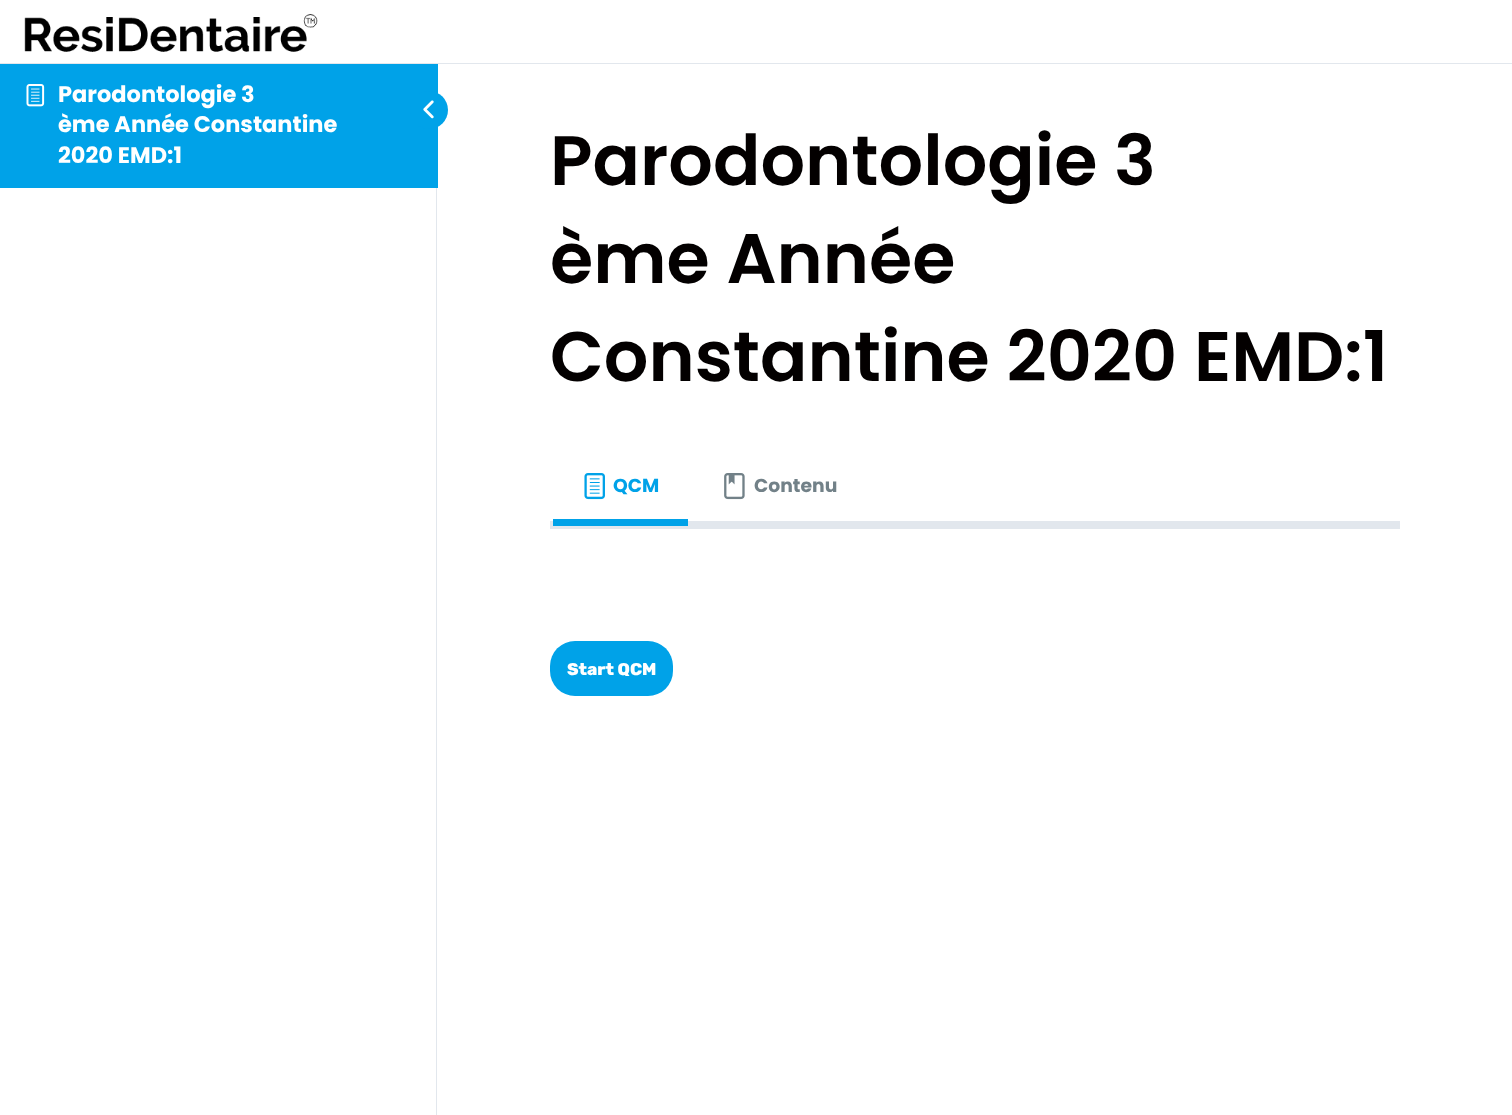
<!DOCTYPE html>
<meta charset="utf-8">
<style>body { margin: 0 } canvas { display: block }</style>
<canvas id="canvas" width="1512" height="1115"></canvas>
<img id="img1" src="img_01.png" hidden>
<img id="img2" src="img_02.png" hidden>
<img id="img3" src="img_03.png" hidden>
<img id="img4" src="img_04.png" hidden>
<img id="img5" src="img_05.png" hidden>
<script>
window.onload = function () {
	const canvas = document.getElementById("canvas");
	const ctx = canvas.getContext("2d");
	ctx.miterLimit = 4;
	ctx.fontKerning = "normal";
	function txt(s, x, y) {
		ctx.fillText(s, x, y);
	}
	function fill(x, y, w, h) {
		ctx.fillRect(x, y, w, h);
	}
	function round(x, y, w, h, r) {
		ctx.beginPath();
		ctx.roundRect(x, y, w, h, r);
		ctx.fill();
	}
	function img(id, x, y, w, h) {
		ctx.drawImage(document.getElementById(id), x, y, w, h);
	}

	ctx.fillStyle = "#FFFFFF";
	fill(0, 0, 1512, 1115);
	ctx.fillStyle = "#E2E7ED";
	fill(436, 188, 1, 927);
	ctx.fillStyle = "#00A2E8";
	fill(0, 64, 438, 124);
	img("img1", 26, 84, 19, 23);
	ctx.beginPath();
	ctx.arc(429, 110, 19, 0, Math.PI * 2);
	ctx.fill();
	img("img2", 423, 100, 11, 19);
	ctx.fillStyle = "#E2E7ED";
	fill(0, 63, 1512, 1);
	img("img3", 24, 14, 294, 38);
	img("img4", 584, 473, 21, 27);
	fill(550, 521, 850, 8);
	ctx.fillStyle = "#00A2E8";
	fill(553, 519, 135, 7);
	img("img5", 724, 473, 21, 27);
	round(550, 641, 123, 55, 25);
	ctx.font = "bold 22.5px Poppins";
	ctx.fillStyle = "#FFFFFF";
	txt("Parodontologie 3", 58, 102);
	txt("ème Année Constantine", 58, 132);
	txt("2020 EMD:1", 58, 163);
	ctx.font = "600 70px Poppins";
	ctx.fillStyle = "#030000";
	txt("Parodontologie 3", 550, 185);
	txt("ème Année", 550, 283);
	txt("Constantine 2020 EMD:1", 550, 381);
	ctx.font = "bold 18.75px Poppins";
	ctx.fillStyle = "#00A2E8";
	txt("QCM", 613, 492);
	ctx.fillStyle = "#728188";
	txt("Contenu", 754, 492);
	ctx.font = "800 17px Rubik";
	ctx.fillStyle = "#FFFFFF";
	txt("Start QCM", 567, 675);
};
</script>
